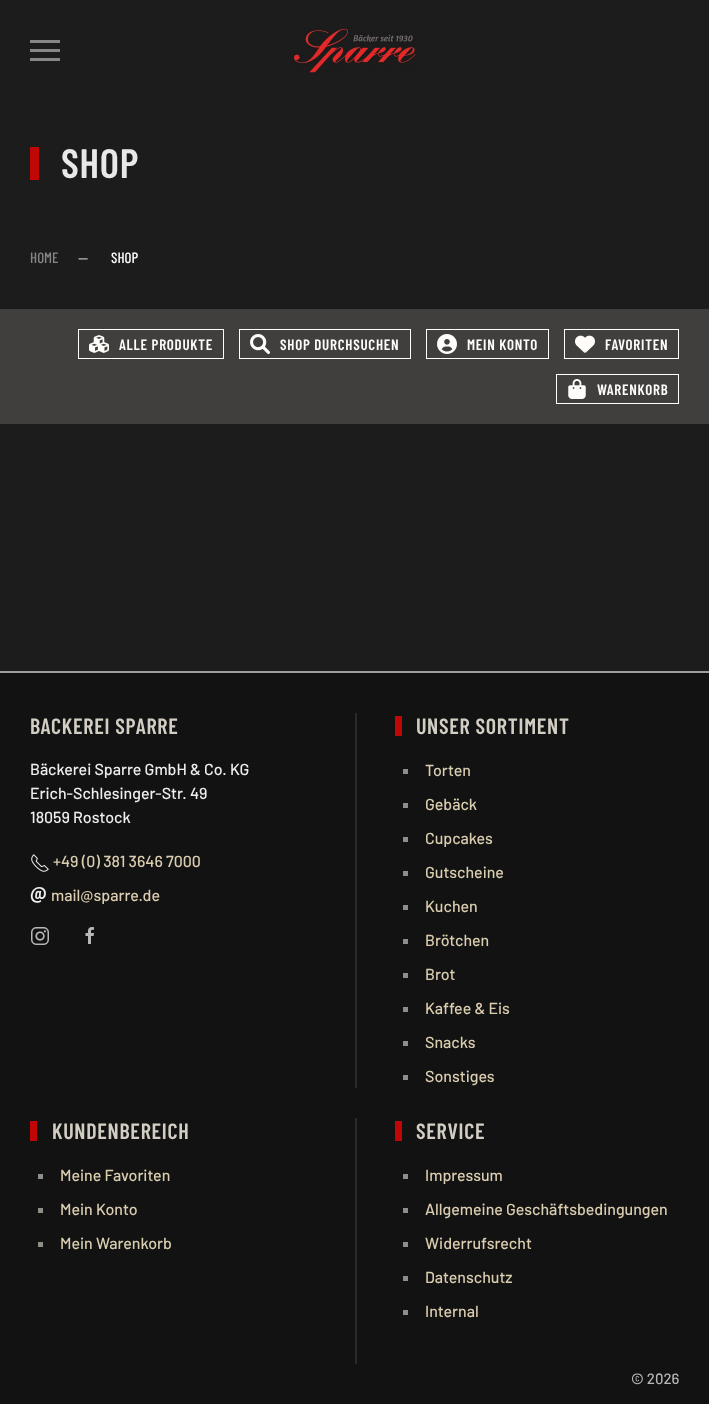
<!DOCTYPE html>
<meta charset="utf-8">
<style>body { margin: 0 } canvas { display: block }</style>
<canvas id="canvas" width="709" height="1404"></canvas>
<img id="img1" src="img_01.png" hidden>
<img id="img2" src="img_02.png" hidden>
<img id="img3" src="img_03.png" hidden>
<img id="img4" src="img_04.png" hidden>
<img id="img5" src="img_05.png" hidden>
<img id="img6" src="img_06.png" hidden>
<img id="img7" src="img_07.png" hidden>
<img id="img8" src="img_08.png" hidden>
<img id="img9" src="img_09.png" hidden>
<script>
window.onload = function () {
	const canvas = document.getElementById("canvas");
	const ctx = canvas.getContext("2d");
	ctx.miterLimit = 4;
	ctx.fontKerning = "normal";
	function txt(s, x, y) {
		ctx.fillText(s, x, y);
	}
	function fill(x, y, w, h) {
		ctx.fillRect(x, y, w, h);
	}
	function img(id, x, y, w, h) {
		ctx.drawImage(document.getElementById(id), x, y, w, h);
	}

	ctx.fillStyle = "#1C1C1C";
	fill(0, 0, 709, 1404);
	ctx.fillStyle = "#868686";
	fill(30, 40, 30, 3);
	fill(30, 49, 30, 3);
	fill(30, 58, 30, 3);
	img("img1", 293, 28, 123, 45);
	ctx.fillStyle = "#C10606";
	fill(30, 147, 9, 33);
	ctx.fillStyle = "#403F3D";
	fill(0, 309, 709, 115);
	ctx.strokeStyle = "#FFFFFF";
	ctx.strokeRect(78.5, 329.5, 145, 29);
	img("img2", 89, 335, 20, 18);
	ctx.strokeRect(239.5, 329.5, 171, 29);
	img("img3", 250, 334, 20, 20);
	ctx.strokeRect(426.5, 329.5, 122, 29);
	img("img4", 437, 334, 20, 20);
	ctx.strokeRect(564.5, 329.5, 114, 29);
	img("img5", 575, 335, 20, 18);
	ctx.strokeRect(556.5, 374.5, 122, 29);
	img("img6", 568, 379, 18, 20);
	ctx.fillStyle = "#A19E9A";
	fill(0, 671, 709, 2);
	ctx.fillStyle = "#121212";
	fill(0, 673, 709, 731);
	img("img7", 31, 854, 18, 18);
	img("img8", 31, 927, 18, 18);
	img("img9", 85, 927, 9, 17);
	ctx.fillStyle = "#2A2A2A";
	fill(355, 713, 2, 375);
	ctx.fillStyle = "#C10606";
	fill(395, 716, 7, 20);
	ctx.fillStyle = "#908D88";
	fill(403, 769, 5, 5);
	fill(403, 803, 5, 5);
	fill(403, 837, 5, 5);
	fill(403, 871, 5, 5);
	fill(403, 905, 5, 5);
	fill(403, 939, 5, 5);
	fill(403, 973, 5, 5);
	fill(403, 1007, 5, 5);
	fill(403, 1041, 5, 5);
	fill(403, 1075, 5, 5);
	ctx.fillStyle = "#C10606";
	fill(30, 1121, 7, 20);
	ctx.fillStyle = "#908D88";
	fill(38, 1174, 5, 5);
	fill(38, 1208, 5, 5);
	fill(38, 1242, 5, 5);
	ctx.fillStyle = "#2A2A2A";
	fill(355, 1118, 2, 246);
	ctx.fillStyle = "#C10606";
	fill(395, 1121, 7, 20);
	ctx.fillStyle = "#908D88";
	fill(403, 1174, 5, 5);
	fill(403, 1208, 5, 5);
	fill(403, 1242, 5, 5);
	fill(403, 1276, 5, 5);
	fill(403, 1310, 5, 5);
	ctx.letterSpacing = "0.75px";
	ctx.font = "600 41px Barlow Condensed";
	ctx.fillStyle = "#E8E8E8";
	txt("SHOP", 61, 178);
	ctx.letterSpacing = "0px";
	ctx.font = "500 15px Barlow Condensed";
	ctx.fillStyle = "#868686";
	txt("HOME", 30, 263);
	ctx.font = "500 15px Barlow";
	ctx.fillStyle = "#B7B7B7";
	txt("—", 78, 263);
	ctx.font = "500 15px Barlow Condensed";
	ctx.fillStyle = "#FFFFFF";
	txt("SHOP", 111, 263);
	ctx.letterSpacing = "0.75px";
	ctx.font = "600 15px Barlow Condensed";
	ctx.fillStyle = "#FFFCF9";
	txt("ALLE PRODUKTE", 119, 350);
	txt("SHOP DURCHSUCHEN", 280, 350);
	txt("MEIN KONTO", 467, 350);
	txt("FAVORITEN", 605, 350);
	txt("WARENKORB", 597, 395);
	ctx.font = "600 22px Barlow Condensed";
	ctx.fillStyle = "#D3CEC3";
	txt("BACKEREI SPARRE", 30, 734);
	ctx.letterSpacing = "0px";
	ctx.font = "500 16px Barlow";
	ctx.fillStyle = "#EEEEEE";
	txt("Bäckerei Sparre GmbH & Co. KG", 30, 775);
	txt("Erich-Schlesinger-Str. 49", 30, 799);
	txt("18059 Rostock", 30, 823);
	ctx.fillStyle = "#DACDB0";
	txt("+49 (0) 381 3646 7000", 53, 867);
	ctx.letterSpacing = "0.75px";
	ctx.font = "600 22px Barlow Condensed";
	ctx.fillStyle = "#EEEEEE";
	txt("@", 30, 901);
	ctx.letterSpacing = "0px";
	ctx.font = "500 16px Barlow";
	ctx.fillStyle = "#DACDB0";
	txt("mail@sparre.de", 51, 901);
	ctx.letterSpacing = "0.75px";
	ctx.font = "600 22px Barlow Condensed";
	ctx.fillStyle = "#D3CEC3";
	txt("UNSER SORTIMENT", 416, 734);
	ctx.letterSpacing = "0px";
	ctx.font = "500 16px Barlow";
	ctx.fillStyle = "#DACDB0";
	txt("Torten", 425, 776);
	txt("Gebäck", 425, 810);
	txt("Cupcakes", 425, 844);
	txt("Gutscheine", 425, 878);
	txt("Kuchen", 425, 912);
	txt("Brötchen", 425, 946);
	txt("Brot", 425, 980);
	txt("Kaffee & Eis", 425, 1014);
	txt("Snacks", 425, 1048);
	txt("Sonstiges", 425, 1082);
	ctx.letterSpacing = "0.75px";
	ctx.font = "600 22px Barlow Condensed";
	ctx.fillStyle = "#D3CEC3";
	txt("KUNDENBEREICH", 52, 1139);
	ctx.letterSpacing = "0px";
	ctx.font = "500 16px Barlow";
	ctx.fillStyle = "#DACDB0";
	txt("Meine Favoriten", 60, 1181);
	txt("Mein Konto", 60, 1215);
	txt("Mein Warenkorb", 60, 1249);
	ctx.letterSpacing = "0.75px";
	ctx.font = "600 22px Barlow Condensed";
	ctx.fillStyle = "#D3CEC3";
	txt("SERVICE", 416, 1139);
	ctx.letterSpacing = "0px";
	ctx.font = "500 16px Barlow";
	ctx.fillStyle = "#DACDB0";
	txt("Impressum", 425, 1181);
	txt("Allgemeine Geschäftsbedingungen", 425, 1215);
	txt("Widerrufsrecht", 425, 1249);
	txt("Datenschutz", 425, 1283);
	txt("Internal", 425, 1317);
	ctx.font = "500 15px Barlow";
	ctx.fillStyle = "#B7B7B7";
	txt("© 2026", 631, 1384);
};
</script>
